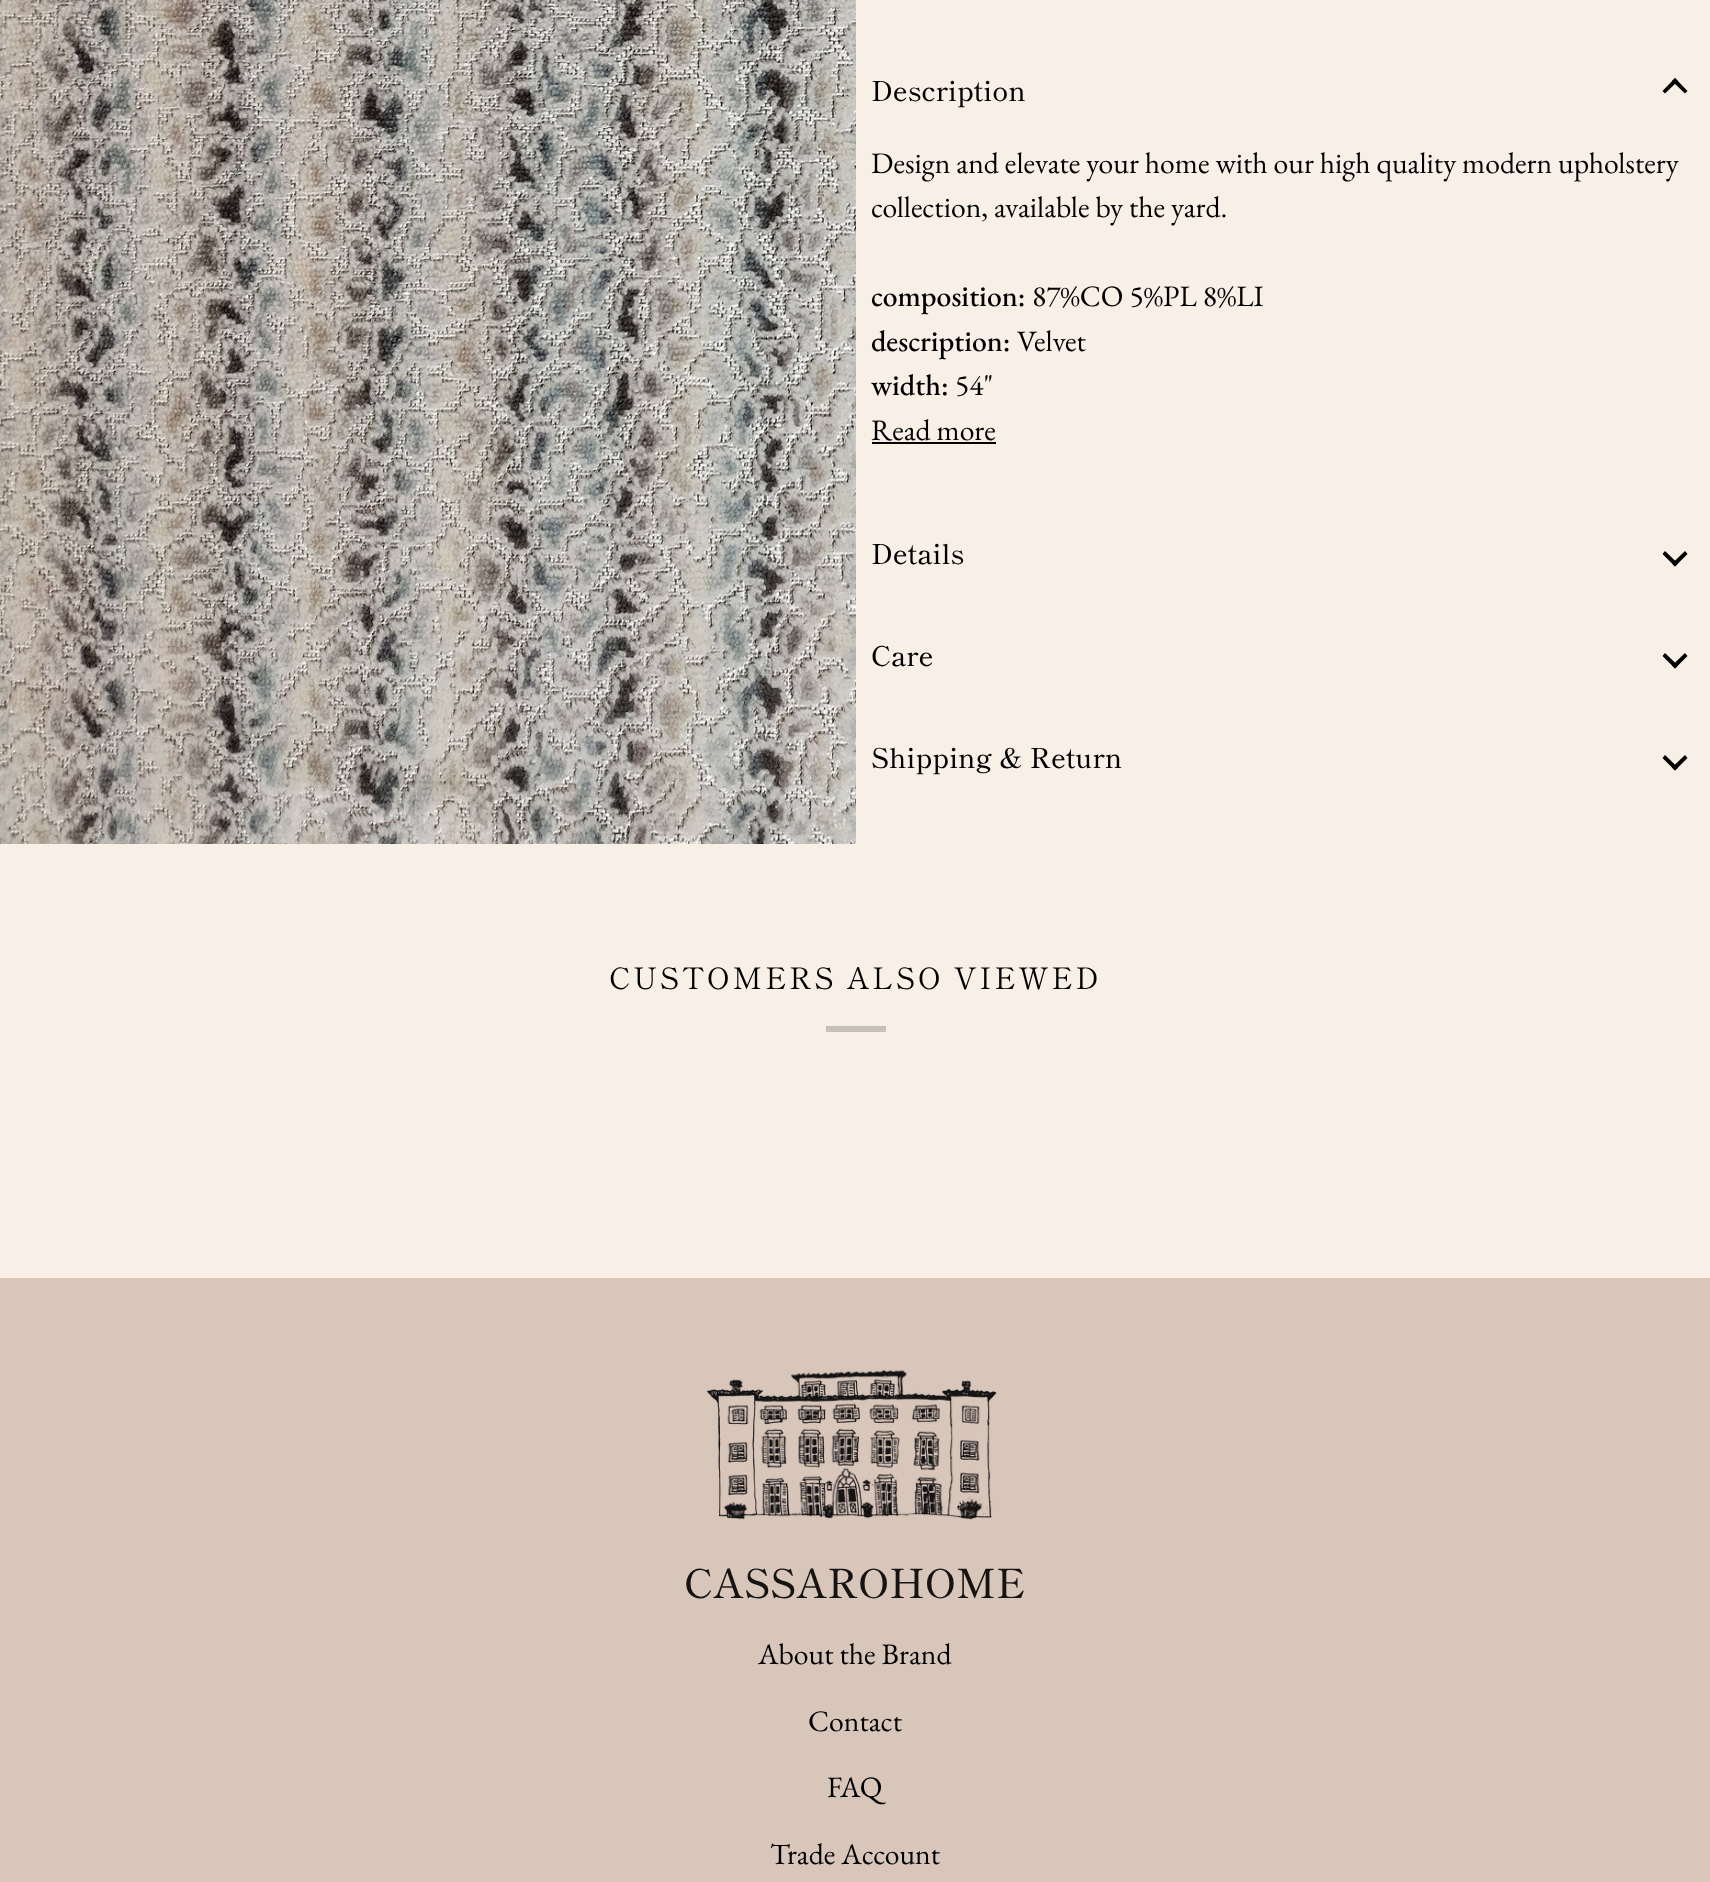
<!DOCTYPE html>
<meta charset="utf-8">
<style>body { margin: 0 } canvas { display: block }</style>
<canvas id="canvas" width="1710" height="1882"></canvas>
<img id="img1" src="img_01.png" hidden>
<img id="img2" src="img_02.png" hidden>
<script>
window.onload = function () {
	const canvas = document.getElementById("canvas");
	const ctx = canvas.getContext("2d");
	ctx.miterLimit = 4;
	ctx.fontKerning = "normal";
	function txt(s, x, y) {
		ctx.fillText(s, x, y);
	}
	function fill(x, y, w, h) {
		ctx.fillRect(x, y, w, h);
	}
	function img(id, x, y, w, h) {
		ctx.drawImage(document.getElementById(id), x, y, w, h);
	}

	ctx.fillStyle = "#F8F0E7";
	fill(0, 0, 1710, 1882);
	img("img1", 0, 0, 856, 844);
	ctx.fillStyle = "#000000";
	ctx.beginPath();
	ctx.moveTo(1678, 81);
	ctx.lineTo(1665, 93.5);
	ctx.lineTo(1662.5, 91);
	ctx.lineTo(1675, 78);
	ctx.closePath();
	ctx.fill();
	ctx.beginPath();
	ctx.moveTo(1687.5, 91);
	ctx.lineTo(1685, 93.5);
	ctx.lineTo(1672, 81);
	ctx.lineTo(1675, 78);
	ctx.closePath();
	ctx.fill();
	fill(872, 442, 124, 2);
	ctx.beginPath();
	ctx.moveTo(1672, 563.5);
	ctx.lineTo(1685, 551);
	ctx.lineTo(1687.5, 554);
	ctx.lineTo(1675, 566.5);
	ctx.closePath();
	ctx.fill();
	ctx.beginPath();
	ctx.moveTo(1662.5, 554);
	ctx.lineTo(1665, 551);
	ctx.lineTo(1678, 563.5);
	ctx.lineTo(1675, 566.5);
	ctx.closePath();
	ctx.fill();
	ctx.beginPath();
	ctx.moveTo(1672, 665.5);
	ctx.lineTo(1685, 653);
	ctx.lineTo(1687.5, 656);
	ctx.lineTo(1675, 668.5);
	ctx.closePath();
	ctx.fill();
	ctx.beginPath();
	ctx.moveTo(1662.5, 656);
	ctx.lineTo(1665, 653);
	ctx.lineTo(1678, 665.5);
	ctx.lineTo(1675, 668.5);
	ctx.closePath();
	ctx.fill();
	ctx.beginPath();
	ctx.moveTo(1672, 767.5);
	ctx.lineTo(1685, 755);
	ctx.lineTo(1687.5, 758);
	ctx.lineTo(1675, 770.5);
	ctx.closePath();
	ctx.fill();
	ctx.beginPath();
	ctx.moveTo(1662.5, 758);
	ctx.lineTo(1665, 755);
	ctx.lineTo(1678, 767.5);
	ctx.lineTo(1675, 770.5);
	ctx.closePath();
	ctx.fill();
	ctx.fillStyle = "#C6C0B9";
	fill(826, 1026, 60, 6);
	ctx.fillStyle = "#D8C6BA";
	fill(0, 1278, 1710, 604);
	img("img2", 706, 1370, 291, 150);
	ctx.font = "500 27.5px Shippori Mincho";
	ctx.fillStyle = "#000000";
	txt("Description", 871, 101);
	ctx.font = "29.7px EB Garamond";
	txt("Design and elevate your home with our high quality modern upholstery", 871, 173);
	txt("collection, available by the yard.", 871, 217);
	ctx.font = "500 29.7px EB Garamond";
	txt("composition:", 871, 306);
	ctx.font = "29.7px EB Garamond";
	txt("87%CO 5%PL 8%LI", 1032, 306);
	ctx.font = "500 29.7px EB Garamond";
	txt("description:", 871, 351);
	ctx.font = "29.7px EB Garamond";
	txt("Velvet", 1017, 351);
	ctx.font = "500 29.7px EB Garamond";
	txt("width:", 871, 395);
	ctx.font = "29.7px EB Garamond";
	txt("54\"", 955, 395);
	txt("Read more", 871, 440);
	ctx.font = "500 27.5px Shippori Mincho";
	txt("Details", 871, 564);
	txt("Care", 871, 666);
	txt("Shipping & Return", 871, 768);
	ctx.letterSpacing = "2.7px";
	ctx.font = "29.7px Shippori Mincho";
	txt("CUSTOMERS ALSO VIEWED", 609, 989);
	ctx.letterSpacing = "0px";
	ctx.font = "500 40px Shippori Mincho";
	ctx.fillStyle = "#161413";
	txt("CASSAROHOME", 684, 1598);
	ctx.font = "29.7px EB Garamond";
	ctx.fillStyle = "#000000";
	txt("About the Brand", 758, 1664);
	txt("Contact", 808, 1731);
	txt("FAQ", 827, 1797);
	txt("Trade Account", 770, 1864);
};
</script>
